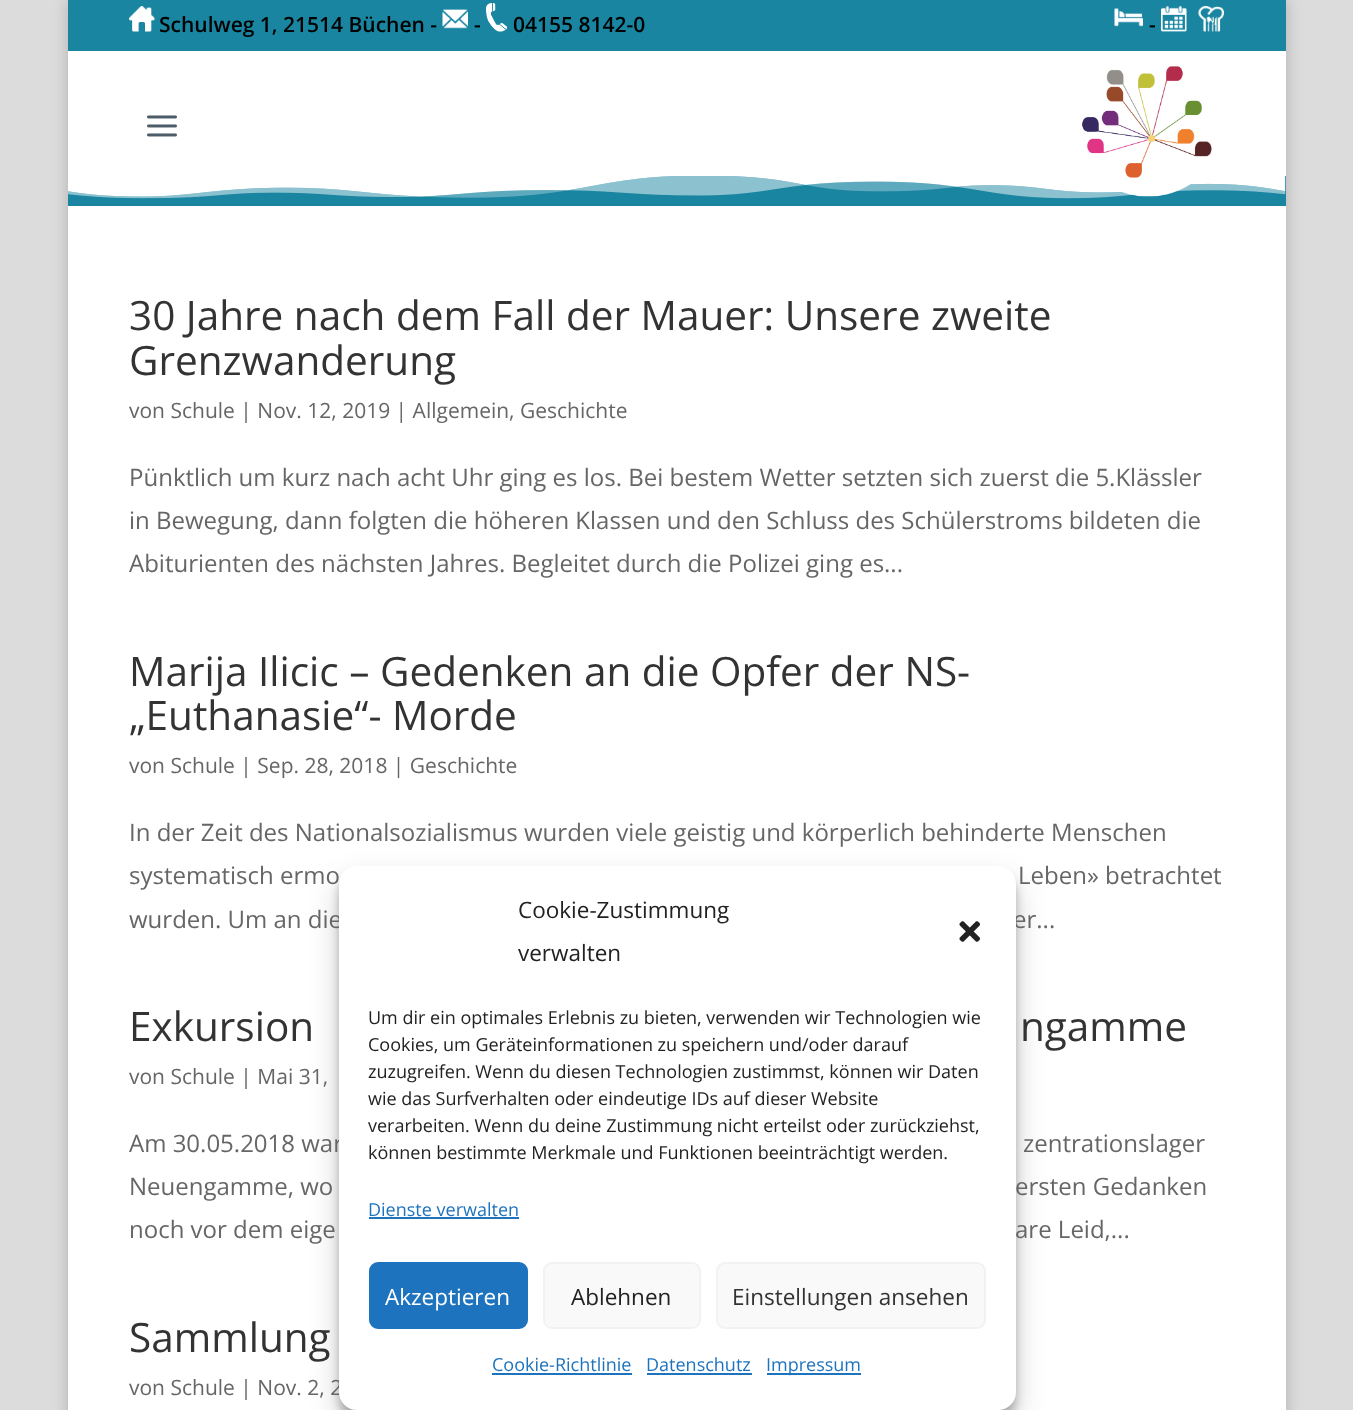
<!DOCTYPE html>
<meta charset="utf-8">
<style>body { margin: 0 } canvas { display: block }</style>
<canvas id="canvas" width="1353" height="1410"></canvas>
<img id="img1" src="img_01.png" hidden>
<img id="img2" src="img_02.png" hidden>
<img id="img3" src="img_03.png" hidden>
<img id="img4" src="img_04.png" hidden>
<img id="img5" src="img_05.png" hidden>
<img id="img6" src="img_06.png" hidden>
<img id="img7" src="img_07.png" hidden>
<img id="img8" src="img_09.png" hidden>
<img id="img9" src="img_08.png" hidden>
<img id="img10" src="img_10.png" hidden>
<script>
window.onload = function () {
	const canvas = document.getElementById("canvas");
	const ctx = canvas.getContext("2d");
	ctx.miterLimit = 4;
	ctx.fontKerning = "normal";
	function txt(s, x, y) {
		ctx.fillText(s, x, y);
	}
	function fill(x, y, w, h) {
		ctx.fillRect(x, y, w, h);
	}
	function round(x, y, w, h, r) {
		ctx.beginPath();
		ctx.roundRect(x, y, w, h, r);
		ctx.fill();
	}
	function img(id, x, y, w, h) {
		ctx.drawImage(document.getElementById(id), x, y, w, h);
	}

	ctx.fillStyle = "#DCDCDD";
	fill(0, 0, 1353, 1410);
	ctx.fillStyle = "rgba(0, 0, 0, 0.2)";
	ctx.filter = "blur(7.5px)";
	ctx.beginPath();
	ctx.rect(68, 0, 1218, 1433);
	ctx.fill();
	ctx.filter = "none";
	ctx.fillStyle = "#1985A1";
	fill(68, 0, 1218, 51);
	img("img1", 129, 6, 26, 26);
	img("img2", 442, 9, 26, 20);
	img("img3", 486, 3, 21, 29);
	img("img4", 1114, 8, 29, 19);
	img("img5", 1161, 6, 26, 26);
	img("img6", 1198, 6, 26, 26);
	ctx.fillStyle = "#FFFFFF";
	fill(68, 51, 1218, 125);
	img("img7", 147, 115, 30, 22);
	ctx.fillStyle = "#1985A1";
	fill(68, 176, 1218, 30);
	img("img8", 68, 176, 1218, 23);
	img("img9", 1082, 66, 130, 131);
	ctx.fillStyle = "#FFFFFF";
	fill(68, 206, 1218, 1204);
	ctx.fillStyle = "rgba(0, 0, 0, 0.23)";
	ctx.filter = "blur(4.5px)";
	ctx.beginPath();
	ctx.roundRect(339, 875, 677, 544, 18);
	ctx.fill();
	ctx.filter = "none";
	ctx.fillStyle = "rgba(0, 0, 0, 0.19)";
	ctx.filter = "blur(15px)";
	ctx.beginPath();
	ctx.roundRect(339, 881, 677, 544, 18);
	ctx.fill();
	ctx.filter = "none";
	ctx.font = "600 21px Open Sans";
	ctx.fillStyle = "#000000";
	txt("Schulweg 1, 21514 Büchen -", 159, 32);
	txt("-", 474, 32);
	txt("04155 8142-0", 513, 32);
	txt("-", 1149, 32);
	ctx.font = "40.5px Open Sans";
	ctx.fillStyle = "#333333";
	txt("30 Jahre nach dem Fall der Mauer: Unsere zweite", 129, 330);
	txt("Grenzwanderung", 129, 375);
	ctx.font = "21px Open Sans";
	ctx.fillStyle = "#666666";
	txt("von Schule | Nov. 12, 2019 | Allgemein, Geschichte", 129, 418);
	ctx.font = "24px Open Sans";
	txt("Pünktlich um kurz nach acht Uhr ging es los. Bei bestem Wetter setzten sich zuerst die 5.Klässler", 129, 486);
	txt("in Bewegung, dann folgten die höheren Klassen und den Schluss des Schülerstroms bildeten die", 129, 529);
	txt("Abiturienten des nächsten Jahres. Begleitet durch die Polizei ging es...", 129, 572);
	ctx.font = "40.5px Open Sans";
	ctx.fillStyle = "#333333";
	txt("Marija Ilicic – Gedenken an die Opfer der NS-", 129, 686);
	txt("„Euthanasie“- Morde", 129, 730);
	ctx.font = "21px Open Sans";
	ctx.fillStyle = "#666666";
	txt("von Schule | Sep. 28, 2018 | Geschichte", 129, 773);
	ctx.font = "24px Open Sans";
	txt("In der Zeit des Nationalsozialismus wurden viele geistig und körperlich behinderte Menschen", 129, 841);
	txt("systematisch ermo", 129, 884);
	txt("Leben» betrachtet", 1018, 884);
	txt("wurden. Um an die", 129, 928);
	txt("er...", 1013, 928);
	ctx.font = "40.5px Open Sans";
	ctx.fillStyle = "#333333";
	txt("Exkursion", 129, 1041);
	txt("ngamme", 1020, 1041);
	ctx.font = "21px Open Sans";
	ctx.fillStyle = "#666666";
	txt("von Schule | Mai 31,", 129, 1084);
	ctx.font = "24px Open Sans";
	txt("Am 30.05.2018 war", 129, 1152);
	txt("zentrationslager", 1023, 1152);
	txt("Neuengamme, wo", 129, 1195);
	txt("ersten Gedanken", 1015, 1195);
	txt("noch vor dem eige", 129, 1238);
	txt("are Leid,...", 1015, 1238);
	ctx.font = "40.5px Open Sans";
	ctx.fillStyle = "#333333";
	txt("Sammlung", 129, 1352);
	ctx.font = "21px Open Sans";
	ctx.fillStyle = "#666666";
	txt("von Schule | Nov. 2, 2", 129, 1395);
	ctx.fillStyle = "#FFFFFF";
	round(339, 866, 677, 544, 18);
	ctx.font = "22.5px Open Sans";
	ctx.fillStyle = "#222222";
	txt("Cookie-Zustimmung", 518, 918);
	txt("verwalten", 518, 961);
	img("img10", 959, 921, 21, 21);
	ctx.font = "18px Open Sans";
	txt("Um dir ein optimales Erlebnis zu bieten, verwenden wir Technologien wie", 368, 1024);
	txt("Cookies, um Geräteinformationen zu speichern und/oder darauf", 368, 1051);
	txt("zuzugreifen. Wenn du diesen Technologien zustimmst, können wir Daten", 368, 1078);
	txt("wie das Surfverhalten oder eindeutige IDs auf dieser Website", 368, 1105);
	txt("verarbeiten. Wenn du deine Zustimmung nicht erteilst oder zurückziehst,", 368, 1132);
	txt("können bestimmte Merkmale und Funktionen beeinträchtigt werden.", 368, 1159);
	ctx.fillStyle = "#1E73BE";
	txt("Dienste verwalten", 368, 1216);
	fill(369, 1217, 150, 2);
	ctx.beginPath();
	ctx.roundRect(370, 1263, 157, 65, 8);
	ctx.fill();
	ctx.strokeStyle = "#1E73BE";
	ctx.lineWidth = 2;
	ctx.stroke();
	ctx.font = "22.5px Open Sans";
	ctx.fillStyle = "#FFFFFF";
	txt("Akzeptieren", 385, 1305);
	ctx.fillStyle = "#F9F9F9";
	ctx.beginPath();
	ctx.roundRect(544, 1263, 156, 65, 8);
	ctx.fill();
	ctx.strokeStyle = "#F2F2F2";
	ctx.stroke();
	ctx.fillStyle = "#222222";
	txt("Ablehnen", 571, 1305);
	ctx.fillStyle = "#F9F9F9";
	ctx.beginPath();
	ctx.roundRect(717, 1263, 268, 65, 8);
	ctx.fill();
	ctx.stroke();
	ctx.fillStyle = "#333333";
	txt("Einstellungen ansehen", 732, 1305);
	ctx.font = "18px Open Sans";
	ctx.fillStyle = "#1E73BE";
	txt("Cookie-Richtlinie", 492, 1371);
	fill(492, 1373, 140, 2);
	txt("Datenschutz", 646, 1371);
	fill(647, 1373, 105, 2);
	fill(767, 1373, 94, 2);
	txt("Impressum", 766, 1371);
};
</script>
